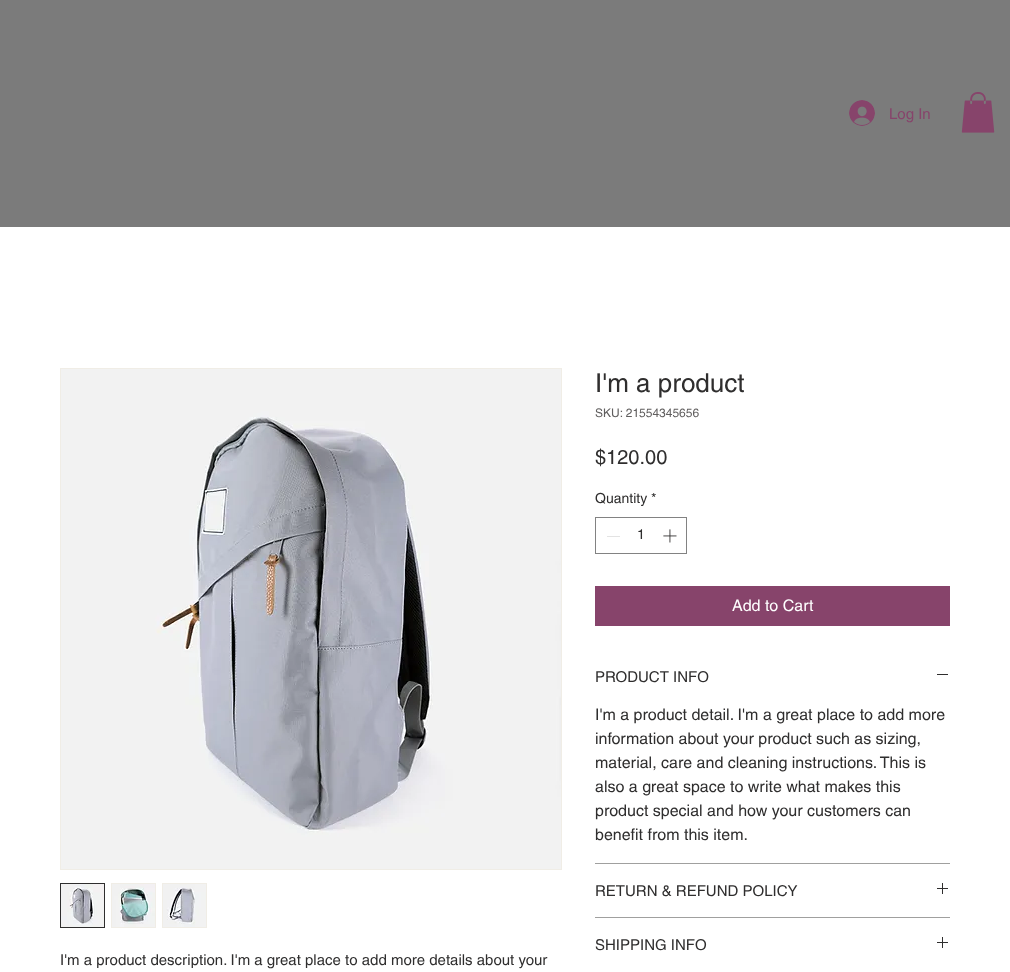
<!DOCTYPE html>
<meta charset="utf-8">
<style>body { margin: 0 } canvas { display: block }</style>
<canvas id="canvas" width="1010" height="972"></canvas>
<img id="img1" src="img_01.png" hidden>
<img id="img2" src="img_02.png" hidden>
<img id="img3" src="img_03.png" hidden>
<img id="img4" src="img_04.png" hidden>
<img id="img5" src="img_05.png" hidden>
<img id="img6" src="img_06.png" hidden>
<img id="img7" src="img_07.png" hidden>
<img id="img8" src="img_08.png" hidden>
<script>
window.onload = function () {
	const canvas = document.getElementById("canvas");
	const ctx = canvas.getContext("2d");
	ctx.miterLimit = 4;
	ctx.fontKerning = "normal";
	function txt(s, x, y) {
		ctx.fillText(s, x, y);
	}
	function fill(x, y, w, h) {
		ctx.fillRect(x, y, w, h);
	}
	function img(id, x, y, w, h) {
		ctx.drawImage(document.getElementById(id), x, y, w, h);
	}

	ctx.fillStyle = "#FFFFFF";
	fill(0, 0, 1010, 972);
	ctx.fillStyle = "#7B7B7B";
	fill(0, 0, 1010, 227);
	img("img1", 849, 100, 26, 26);
	img("img2", 961, 92, 34, 41);
	ctx.strokeStyle = "#828282";
	ctx.strokeRect(595.5, 517.5, 91, 36);
	ctx.fillStyle = "#E3E3E3";
	fill(607, 536, 13, 1);
	img("img3", 663, 529, 14, 14);
	ctx.fillStyle = "#87446B";
	fill(595, 586, 355, 40);
	ctx.fillStyle = "#A0A09F";
	fill(595, 863, 355, 1);
	ctx.fillStyle = "#2F2E2E";
	fill(937, 674, 11, 1);
	ctx.fillStyle = "#A0A09F";
	fill(595, 917, 355, 1);
	img("img4", 937, 883, 11, 11);
	img("img4", 937, 937, 11, 11);
	ctx.strokeStyle = "#F0EDE6";
	ctx.strokeRect(60.5, 368.5, 501, 501);
	img("img5", 61, 369, 500, 500);
	ctx.strokeStyle = "#2F2E2E";
	ctx.strokeRect(60.5, 883.5, 44, 44);
	img("img6", 61, 884, 43, 43);
	ctx.fillStyle = "#F0EDE6";
	fill(111, 883, 45, 45);
	img("img7", 112, 884, 43, 43);
	fill(162, 883, 45, 45);
	img("img8", 163, 884, 43, 43);
	ctx.font = "15px helvetica";
	ctx.fillStyle = "#87446B";
	txt("Log In", 889, 119);
	ctx.font = "26px helvetica";
	ctx.fillStyle = "#2F2E2E";
	txt("I'm a product", 595, 392);
	ctx.font = "12px helvetica";
	ctx.fillStyle = "#605E5E";
	txt("SKU: 21554345656", 595, 417);
	ctx.font = "20px helvetica";
	ctx.fillStyle = "#2F2E2E";
	txt("$120.00", 595, 464);
	ctx.font = "14px helvetica";
	txt("Quantity *", 595, 503);
	txt("1", 637, 539);
	ctx.font = "16px helvetica";
	ctx.fillStyle = "#FFFFFF";
	txt("Add to Cart", 732, 611);
	ctx.font = "15px helvetica";
	ctx.fillStyle = "#2F2E2E";
	txt("PRODUCT INFO", 595, 682);
	ctx.font = "16px helvetica";
	txt("I'm a product detail. I'm a great place to add more", 595, 720);
	txt("information about your product such as sizing,", 595, 744);
	txt("material, care and cleaning instructions. This is", 595, 768);
	txt("also a great space to write what makes this", 595, 792);
	txt("product special and how your customers can", 595, 816);
	txt("benefit from this item.", 595, 840);
	ctx.font = "15px helvetica";
	txt("RETURN & REFUND POLICY", 595, 896);
	txt("SHIPPING INFO", 595, 950);
	txt("I'm a product description. I'm a great place to add more details about your", 60, 965);
};
</script>
